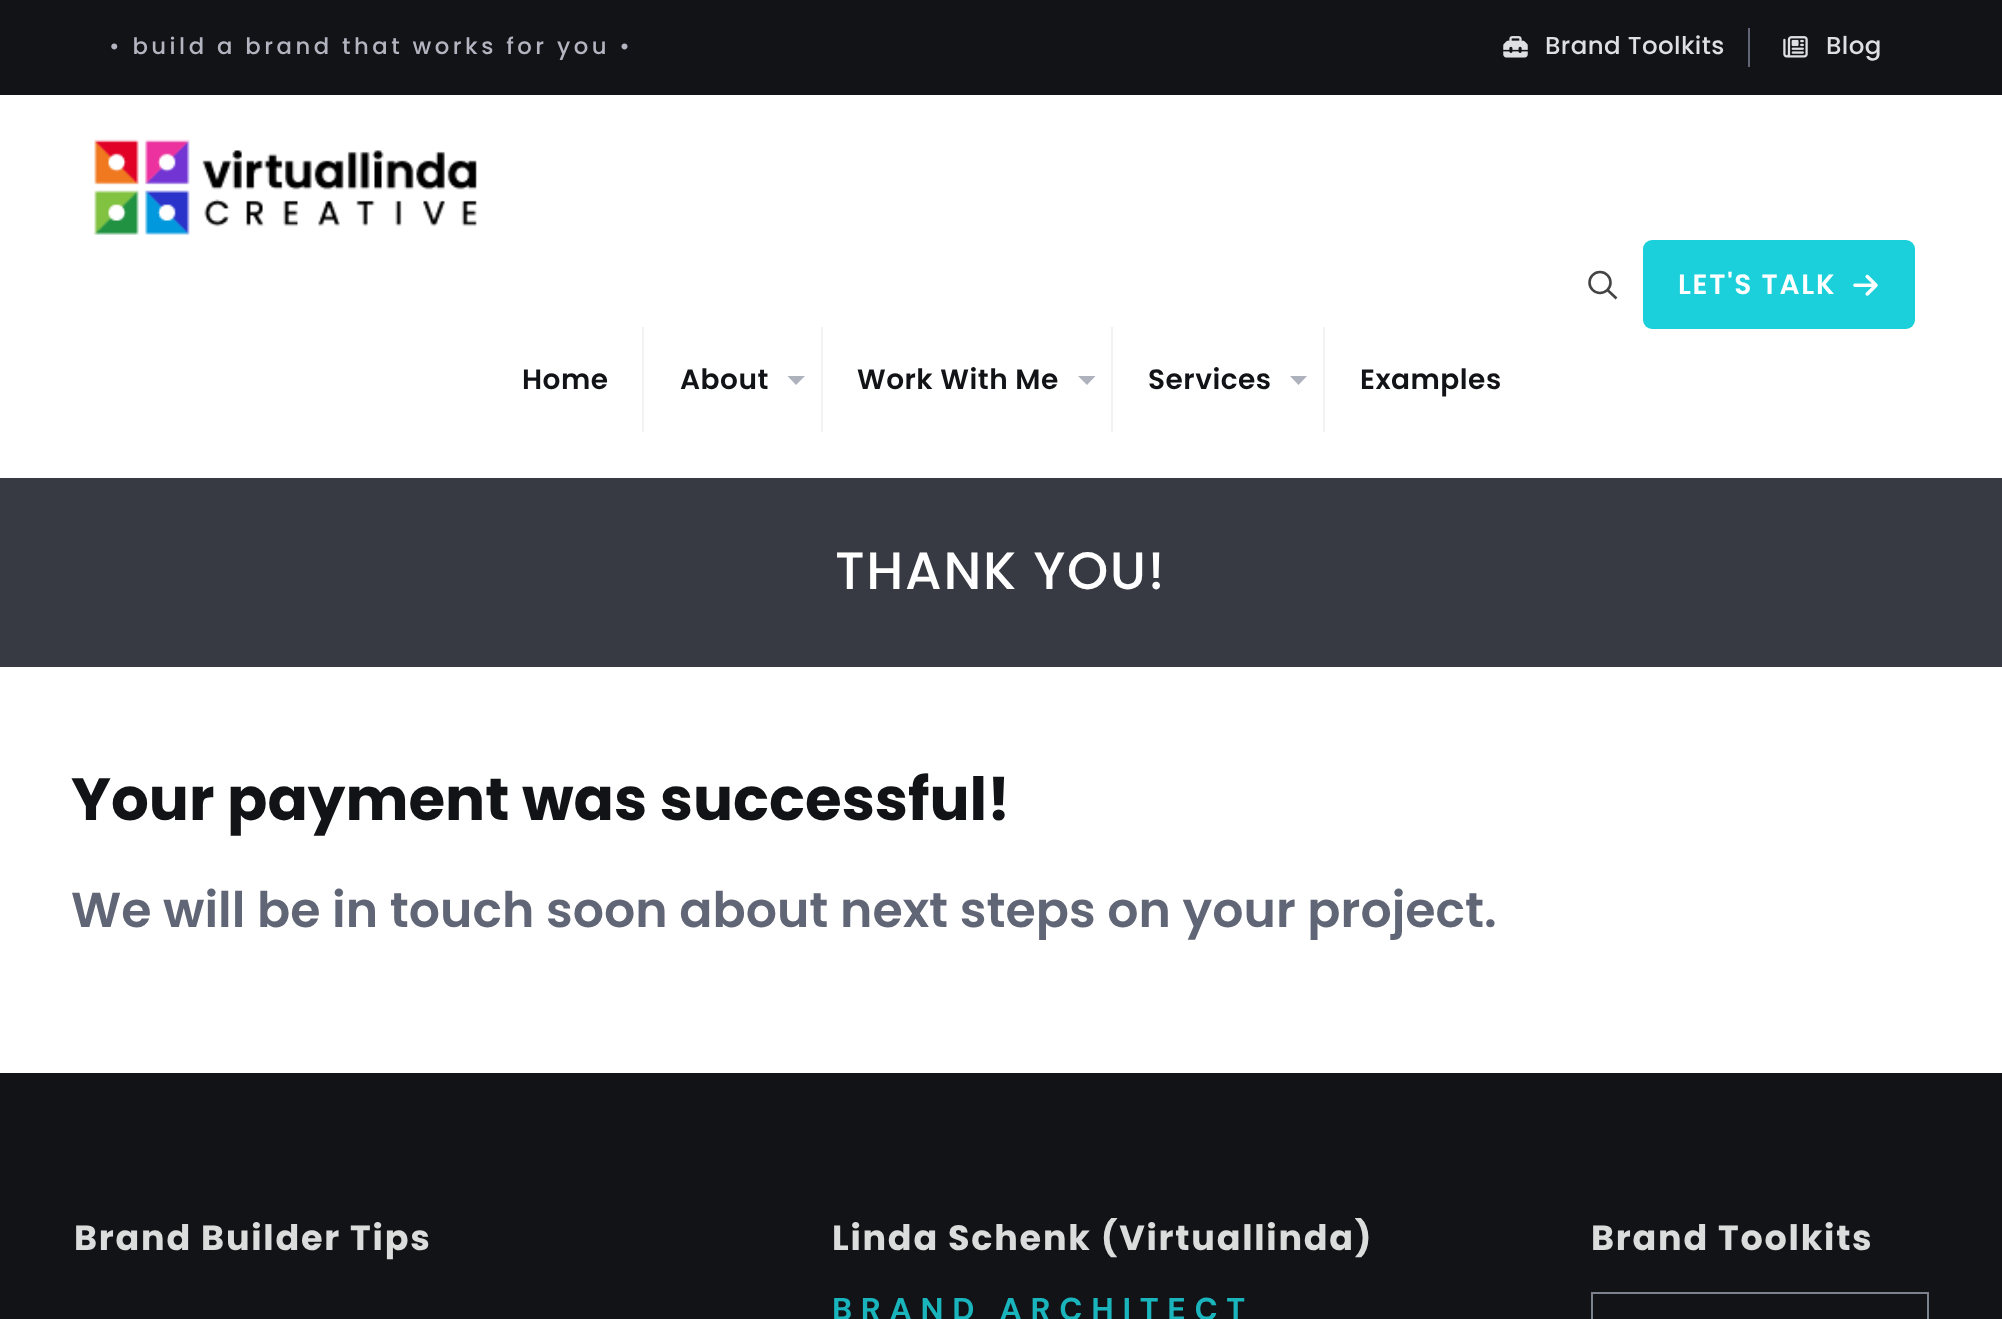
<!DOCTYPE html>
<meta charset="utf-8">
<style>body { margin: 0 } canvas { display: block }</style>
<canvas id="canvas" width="2002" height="1319"></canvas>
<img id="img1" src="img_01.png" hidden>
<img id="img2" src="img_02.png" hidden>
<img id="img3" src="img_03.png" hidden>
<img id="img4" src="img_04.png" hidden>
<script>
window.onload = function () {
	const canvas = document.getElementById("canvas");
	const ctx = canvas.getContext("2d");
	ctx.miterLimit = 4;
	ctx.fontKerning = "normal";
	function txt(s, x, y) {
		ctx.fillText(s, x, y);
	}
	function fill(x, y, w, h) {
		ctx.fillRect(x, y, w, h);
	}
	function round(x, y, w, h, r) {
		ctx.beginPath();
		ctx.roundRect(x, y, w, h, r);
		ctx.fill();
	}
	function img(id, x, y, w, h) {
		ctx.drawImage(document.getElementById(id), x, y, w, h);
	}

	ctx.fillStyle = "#FFFFFF";
	fill(0, 0, 2002, 1319);
	ctx.fillStyle = "#121316";
	fill(0, 0, 2002, 95);
	ctx.fillStyle = "#616676";
	fill(1748, 28, 2, 39);
	img("img1", 1503, 36, 25, 22);
	img("img2", 1783, 36, 25, 22);
	ctx.beginPath();
	ctx.arc(1600, 282.5, 10.5, 0, Math.PI * 2);
	ctx.strokeStyle = "#444444";
	ctx.lineWidth = 2.6;
	ctx.stroke();
	ctx.beginPath();
	ctx.moveTo(1607.5, 290);
	ctx.lineTo(1616.5, 298.5);
	ctx.stroke();
	ctx.fillStyle = "#1BD0DA";
	round(1643, 240, 272, 89, 9);
	img("img3", 1853, 274, 25, 22);
	img("img4", 94, 139, 383, 96);
	ctx.fillStyle = "#F2F2F2";
	fill(642, 327, 2, 105);
	fill(821, 327, 2, 105);
	ctx.fillStyle = "#AEB2BD";
	ctx.beginPath();
	ctx.moveTo(787.5, 376);
	ctx.lineTo(805, 376);
	ctx.lineTo(796, 385);
	ctx.closePath();
	ctx.fill();
	ctx.fillStyle = "#F2F2F2";
	fill(1111, 327, 2, 105);
	ctx.fillStyle = "#AEB2BD";
	ctx.beginPath();
	ctx.moveTo(1078, 376);
	ctx.lineTo(1095.5, 376);
	ctx.lineTo(1087, 385);
	ctx.closePath();
	ctx.fill();
	ctx.fillStyle = "#F2F2F2";
	fill(1323, 327, 2, 105);
	ctx.fillStyle = "#AEB2BD";
	ctx.beginPath();
	ctx.moveTo(1290, 376);
	ctx.lineTo(1307, 376);
	ctx.lineTo(1298.5, 385);
	ctx.closePath();
	ctx.fill();
	ctx.fillStyle = "#373A43";
	fill(0, 478, 2002, 189);
	ctx.fillStyle = "#121316";
	fill(0, 1073, 2002, 246);
	ctx.strokeStyle = "#7C818E";
	ctx.lineWidth = 2;
	ctx.strokeRect(1592, 1293, 336, 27);
	ctx.letterSpacing = "3.5px";
	ctx.font = "500 22.75px Poppins";
	ctx.fillStyle = "#B2B5C0";
	txt("• build a brand that works for you •", 109, 54);
	ctx.letterSpacing = "0.4px";
	ctx.font = "500 24.5px Poppins";
	ctx.fillStyle = "#DDDFE3";
	txt("Brand Toolkits", 1545, 54);
	txt("Blog", 1826, 54);
	ctx.letterSpacing = "1.75px";
	ctx.font = "600 28px Poppins";
	ctx.fillStyle = "#FFFFFF";
	txt("LET'S TALK", 1678, 294);
	ctx.letterSpacing = "0.5px";
	ctx.fillStyle = "#121316";
	txt("Home", 522, 389);
	txt("About", 680, 389);
	txt("Work With Me", 857, 389);
	txt("Services", 1148, 389);
	txt("Examples", 1360, 389);
	ctx.letterSpacing = "1.75px";
	ctx.font = "500 52.5px Poppins";
	ctx.fillStyle = "#FFFFFF";
	txt("THANK YOU!", 835, 589);
	ctx.letterSpacing = "0px";
	ctx.font = "bold 59.5px Poppins";
	ctx.fillStyle = "#121316";
	txt("Your payment was successful!", 71, 820);
	ctx.font = "600 49px Poppins";
	ctx.fillStyle = "#616676";
	txt("We will be in touch soon about next steps on your project.", 71, 927);
	ctx.letterSpacing = "1.75px";
	ctx.font = "bold 35px Poppins";
	ctx.fillStyle = "#DBDCDC";
	txt("Brand Builder Tips", 74, 1250);
	txt("Linda Schenk (Virtuallinda)", 832, 1250);
	ctx.letterSpacing = "8.75px";
	ctx.font = "bold 31.5px DM Sans";
	ctx.fillStyle = "#1AB4BD";
	txt("BRAND ARCHITECT", 832, 1320);
	ctx.letterSpacing = "1.75px";
	ctx.font = "bold 35px Poppins";
	ctx.fillStyle = "#DBDCDC";
	txt("Brand Toolkits", 1591, 1250);
};
</script>
